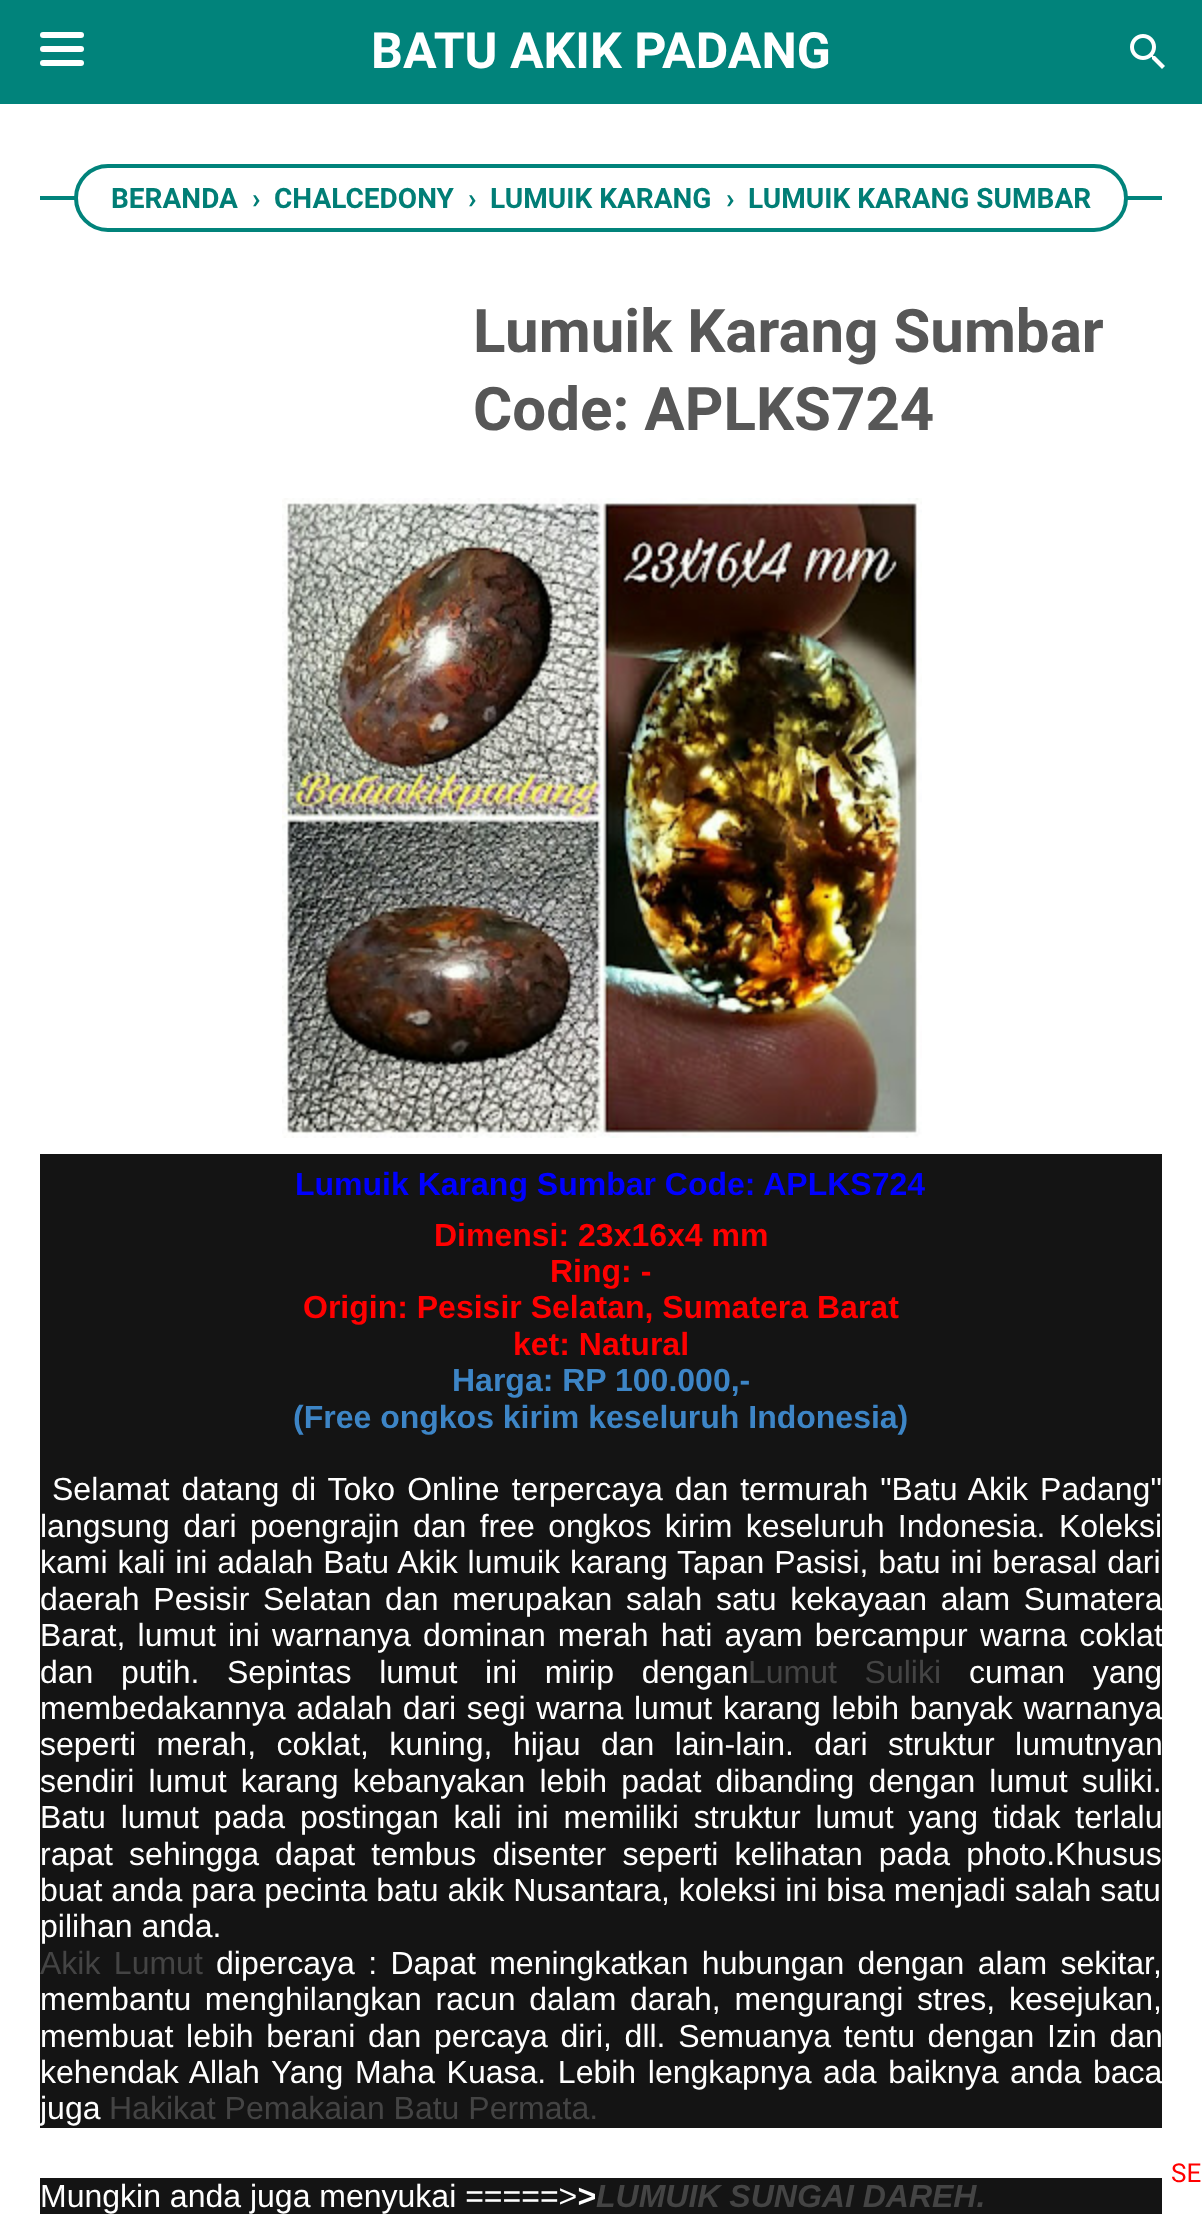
<!DOCTYPE html>
<meta charset="utf-8">
<style>body { margin: 0 } canvas { display: block }</style>
<canvas id="canvas" width="1202" height="2214"></canvas>
<img id="img1" src="img_01.png" hidden>
<img id="img2" src="img_02.png" hidden>
<script>
window.onload = function () {
	const canvas = document.getElementById("canvas");
	const ctx = canvas.getContext("2d");
	ctx.miterLimit = 4;
	ctx.fontKerning = "normal";
	function txt(s, x, y) {
		ctx.fillText(s, x, y);
	}
	function fill(x, y, w, h) {
		ctx.fillRect(x, y, w, h);
	}
	function round(x, y, w, h, r) {
		ctx.beginPath();
		ctx.roundRect(x, y, w, h, r);
		ctx.fill();
	}
	function img(id, x, y, w, h) {
		ctx.drawImage(document.getElementById(id), x, y, w, h);
	}

	ctx.fillStyle = "#FFFFFF";
	fill(0, 0, 1202, 2214);
	ctx.fillStyle = "#01837B";
	fill(0, 0, 1202, 104);
	ctx.fillStyle = "#FFFFFF";
	round(40, 32, 44, 6, 3);
	round(40, 46, 44, 6, 3);
	round(40, 60, 44, 6, 3);
	img("img1", 1130, 34, 35, 35);
	ctx.fillStyle = "#01837B";
	fill(40, 196, 1122, 4);
	ctx.fillStyle = "#FFFFFF";
	ctx.beginPath();
	ctx.roundRect(76, 166, 1050, 64, 32);
	ctx.fill();
	ctx.strokeStyle = "#01837B";
	ctx.lineWidth = 4;
	ctx.stroke();
	img("img2", 282, 498, 640, 640);
	ctx.fillStyle = "#141414";
	fill(40, 1154, 1122, 974);
	fill(40, 2178, 1122, 36);
	ctx.font = "bold 50px Roboto";
	ctx.fillStyle = "#FFFFFF";
	txt("BATU AKIK PADANG", 371, 68);
	ctx.font = "bold 28px Roboto";
	ctx.fillStyle = "#017E76";
	txt("BERANDA", 111, 208);
	txt("›", 252, 208);
	txt("CHALCEDONY", 274, 208);
	txt("›", 468, 208);
	txt("LUMUIK KARANG", 490, 208);
	txt("›", 726, 208);
	txt("LUMUIK KARANG SUMBAR", 748, 208);
	ctx.font = "bold 60px Roboto";
	ctx.fillStyle = "#575757";
	txt("Lumuik Karang Sumbar", 473, 352);
	txt("Code: APLKS724", 473, 430);
	ctx.font = "bold 32px Liberation Sans";
	ctx.fillStyle = "#0000FF";
	txt("Lumuik Karang Sumbar Code: APLKS724", 295, 1195);
	ctx.fillStyle = "#FF0000";
	txt("Dimensi: 23x16x4 mm", 434, 1246);
	txt("Ring: -", 550, 1282);
	txt("Origin: Pesisir Selatan, Sumatera Barat", 303, 1318);
	txt("ket: Natural", 513, 1355);
	ctx.fillStyle = "#3D85C6";
	txt("Harga: RP 100.000,-", 452, 1391);
	txt("(Free ongkos kirim keseluruh Indonesia)", 293, 1428);
	ctx.wordSpacing = "3.1px";
	ctx.font = "32px Liberation Sans";
	ctx.fillStyle = "#FFFFFF";
	txt("Selamat datang di Toko Online terpercaya dan termurah \"Batu Akik Padang\"", 52, 1500);
	ctx.wordSpacing = "4.5px";
	txt("langsung dari poengrajin dan free ongkos kirim keseluruh Indonesia. Koleksi", 40, 1537);
	ctx.wordSpacing = "1px";
	txt("kami kali ini adalah Batu Akik lumuik karang Tapan Pasisi, batu ini berasal dari", 40, 1573);
	ctx.wordSpacing = "4.75px";
	txt("daerah Pesisir Selatan dan merupakan salah satu kekayaan alam Sumatera", 40, 1610);
	ctx.wordSpacing = "3.25px";
	txt("Barat, lumut ini warnanya dominan merah hati ayam bercampur warna coklat", 40, 1646);
	ctx.wordSpacing = "18.75px";
	txt("dan putih. Sepintas lumut ini mirip dengan", 40, 1683);
	ctx.fillStyle = "#444444";
	txt("Lumut Suliki", 748, 1683);
	ctx.fillStyle = "#FFFFFF";
	txt("cuman yang", 969, 1683);
	ctx.wordSpacing = "1.75px";
	txt("membedakannya adalah dari segi warna lumut karang lebih banyak warnanya", 40, 1719);
	ctx.wordSpacing = "11.5px";
	txt("seperti merah, coklat, kuning, hijau dan lain-lain. dari struktur lumutnyan", 40, 1755);
	ctx.wordSpacing = "5.25px";
	txt("sendiri lumut karang kebanyakan lebih padat dibanding dengan lumut suliki.", 40, 1792);
	ctx.wordSpacing = "6px";
	txt("Batu lumut pada postingan kali ini memiliki struktur lumut yang tidak terlalu", 40, 1828);
	ctx.wordSpacing = "7.25px";
	txt("rapat sehingga dapat tembus disenter seperti kelihatan pada photo.Khusus", 40, 1865);
	ctx.wordSpacing = "0px";
	txt("buat anda para pecinta batu akik Nusantara, koleksi ini bisa menjadi salah satu", 40, 1901);
	txt("pilihan anda.", 40, 1937);
	ctx.wordSpacing = "4.5px";
	ctx.fillStyle = "#444444";
	txt("Akik Lumut", 40, 1974);
	ctx.fillStyle = "#FFFFFF";
	txt("dipercaya : Dapat meningkatkan hubungan dengan alam sekitar,", 216, 1974);
	ctx.wordSpacing = "4.75px";
	txt("membantu menghilangkan racun dalam darah, mengurangi stres, kesejukan,", 40, 2010);
	ctx.wordSpacing = "3.75px";
	txt("membuat lebih berani dan percaya diri, dll. Semuanya tentu dengan Izin dan", 40, 2047);
	ctx.wordSpacing = "2.75px";
	txt("kehendak Allah Yang Maha Kuasa. Lebih lengkapnya ada baiknya anda baca", 40, 2083);
	ctx.wordSpacing = "0px";
	txt("juga", 40, 2119);
	ctx.fillStyle = "#444444";
	txt("Hakikat Pemakaian Batu Permata.", 109, 2119);
	ctx.fillStyle = "#FFFFFF";
	txt("Mungkin anda juga menyukai =====>", 40, 2207);
	ctx.font = "italic bold 32px Liberation Sans";
	txt(">", 577, 2207);
	ctx.fillStyle = "#444444";
	txt("LUMUIK SUNGAI DAREH.", 596, 2207);
	ctx.font = "26px Roboto";
	ctx.fillStyle = "#FF0000";
	txt("SE", 1171, 2182);
};
</script>
